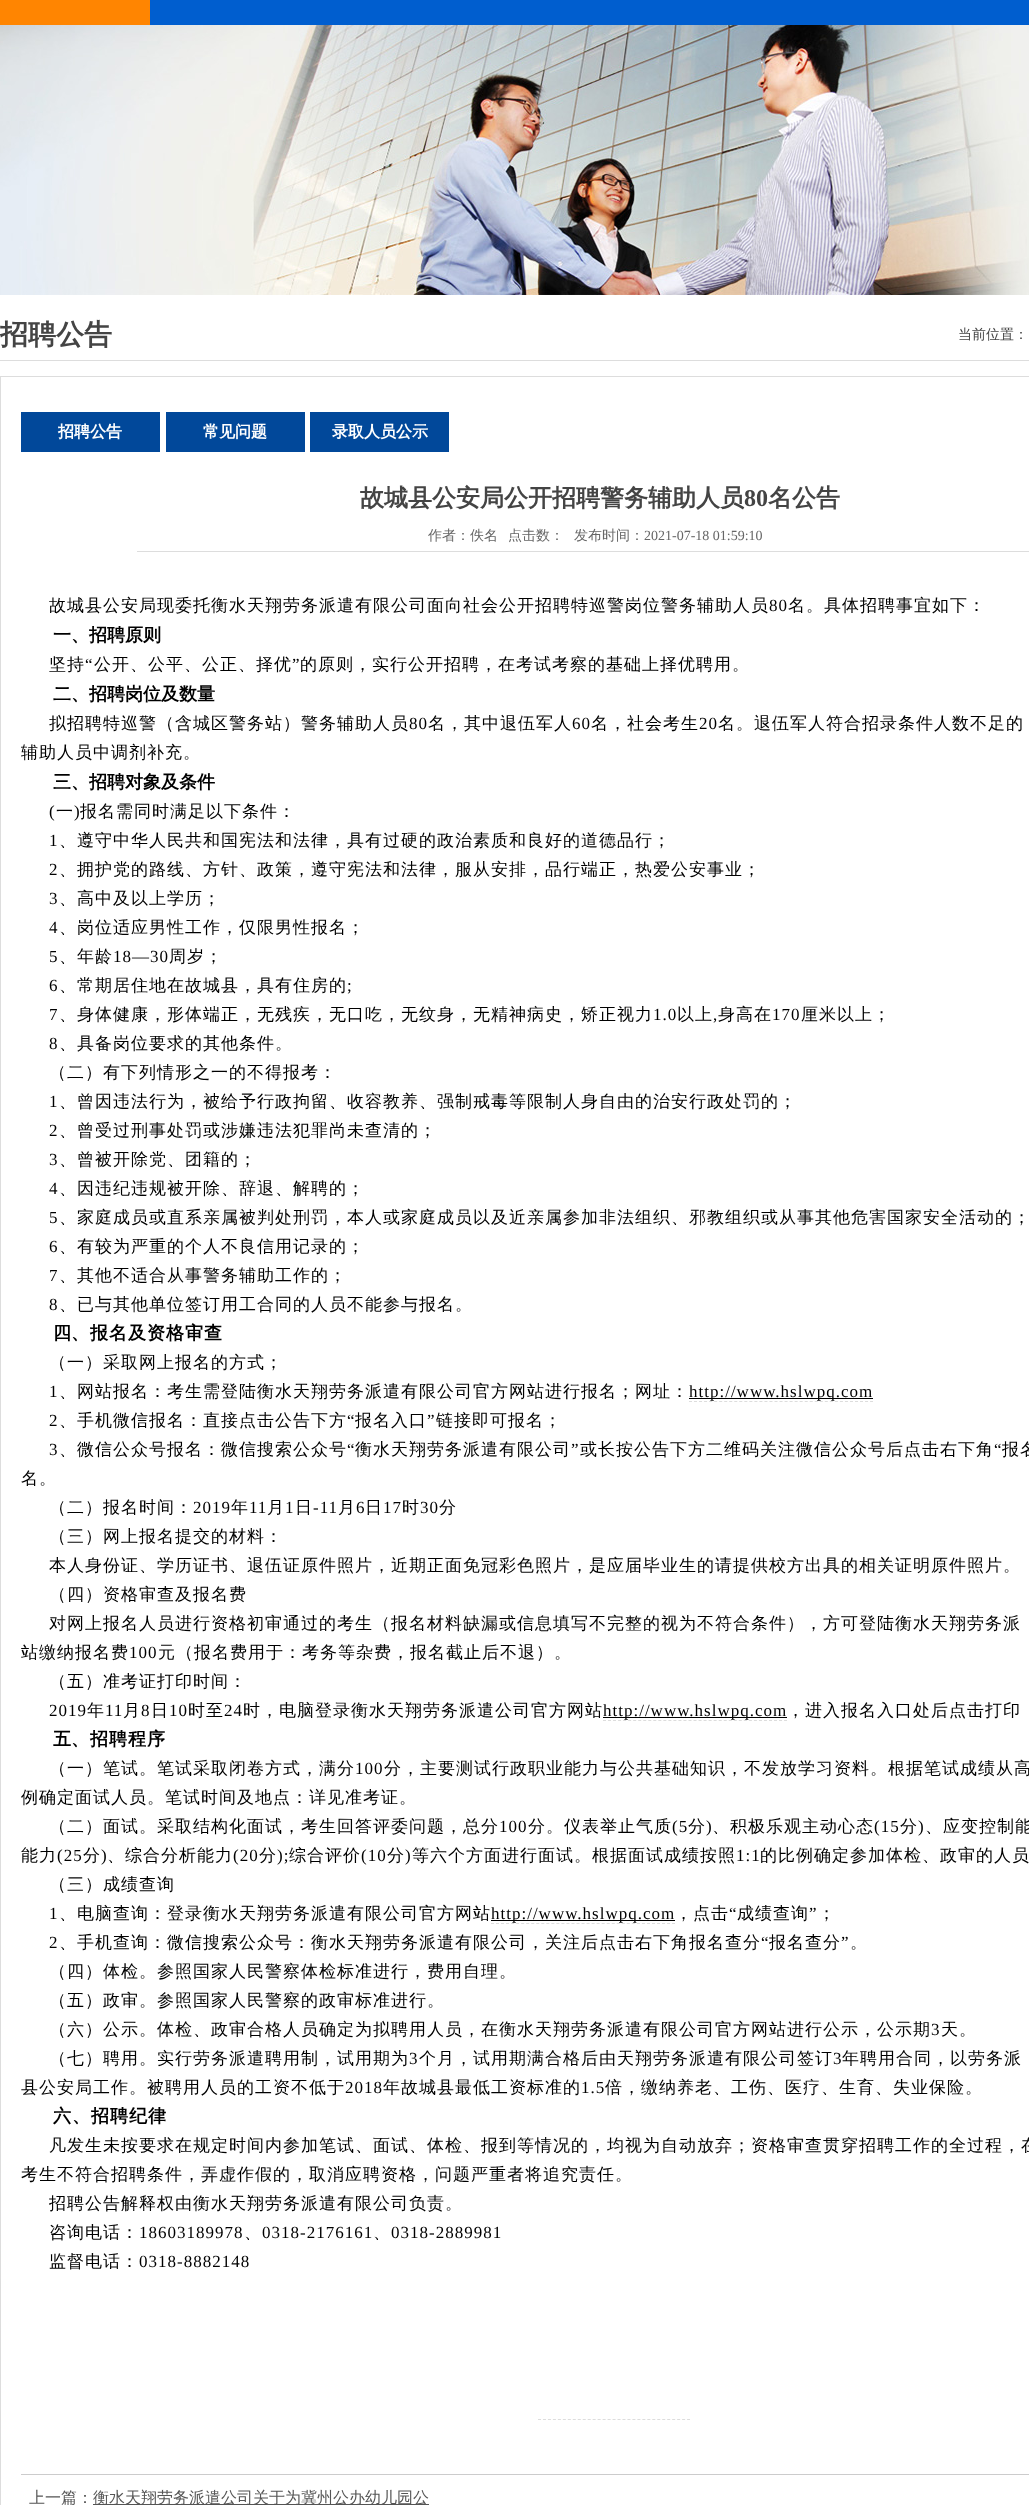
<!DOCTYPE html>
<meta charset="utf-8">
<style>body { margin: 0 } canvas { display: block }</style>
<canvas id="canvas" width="1029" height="2505"></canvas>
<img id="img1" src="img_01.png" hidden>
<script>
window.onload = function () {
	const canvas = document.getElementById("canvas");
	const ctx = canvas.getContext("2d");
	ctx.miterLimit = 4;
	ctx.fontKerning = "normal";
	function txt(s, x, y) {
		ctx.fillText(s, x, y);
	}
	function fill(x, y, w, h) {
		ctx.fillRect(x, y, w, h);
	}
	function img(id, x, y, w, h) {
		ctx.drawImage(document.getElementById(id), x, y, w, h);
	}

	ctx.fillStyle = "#FFFFFF";
	fill(0, 0, 1029, 2505);
	ctx.fillStyle = "#005ECF";
	fill(150, 0, 879, 25);
	ctx.fillStyle = "#FF8501";
	fill(0, 0, 150, 25);
	img("img1", 0, 25, 1029, 270);
	ctx.fillStyle = "#DDDDDD";
	fill(0, 360, 1029, 1);
	ctx.strokeStyle = "#DDDDDD";
	ctx.strokeRect(0.5, 376.5, 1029, 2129);
	ctx.fillStyle = "#01489A";
	fill(21, 412, 139, 40);
	fill(166, 412, 139, 40);
	fill(310, 412, 139, 40);
	ctx.fillStyle = "#DDDDDD";
	fill(137, 551, 892, 1);
	ctx.beginPath();
	ctx.moveTo(689, 1401.5);
	ctx.lineTo(873, 1401.5);
	ctx.setLineDash([3, 2.03]);
	ctx.stroke();
	ctx.fillStyle = "#000000";
	fill(689, 1398, 184, 1);
	ctx.beginPath();
	ctx.moveTo(603, 1720.5);
	ctx.lineTo(787, 1720.5);
	ctx.stroke();
	fill(603, 1717, 184, 1);
	ctx.beginPath();
	ctx.moveTo(491, 1923.5);
	ctx.lineTo(675, 1923.5);
	ctx.stroke();
	fill(491, 1920, 184, 1);
	ctx.beginPath();
	ctx.moveTo(538, 2419.5);
	ctx.lineTo(690, 2419.5);
	ctx.setLineDash([3, 1.97]);
	ctx.stroke();
	ctx.fillStyle = "#CCCCCC";
	fill(21, 2474, 1008, 1);
	ctx.fillStyle = "#545454";
	fill(93, 2504, 336, 1);
	ctx.font = "bold 28px WenQuanYi Zen Hei";
	ctx.fillStyle = "#444444";
	txt("招聘公告", 0, 344);
	ctx.font = "500 14px WenQuanYi Zen Hei";
	txt("当前位置：", 958, 339);
	ctx.font = "bold 16px WenQuanYi Zen Hei";
	ctx.fillStyle = "#FFFFFF";
	txt("招聘公告", 58, 437);
	txt("常见问题", 203, 437);
	txt("录取人员公示", 332, 437);
	ctx.font = "bold 24px WenQuanYi Zen Hei";
	ctx.fillStyle = "#444444";
	txt("故城县公安局公开招聘警务辅助人员", 360, 506);
	ctx.font = "bold 24px Liberation Serif";
	txt("80", 744, 506);
	ctx.font = "bold 24px WenQuanYi Zen Hei";
	txt("名公告", 768, 506);
	ctx.font = "500 14px WenQuanYi Zen Hei";
	ctx.fillStyle = "#666666";
	txt("作者：佚名", 428, 540);
	txt("点击数：", 508, 540);
	txt("发布时间：", 574, 540);
	ctx.font = "14px Liberation Serif";
	txt("2021-07-18 01:59:10", 644, 540);
	ctx.letterSpacing = "1px";
	ctx.font = "500 17px WenQuanYi Zen Hei";
	ctx.fillStyle = "#000000";
	txt("故城县公安局现委托衡水天翔劳务派遣有限公司面向社会公开招聘特巡警岗位警务辅助人员", 49, 611);
	ctx.font = "17px Liberation Serif";
	txt("80", 769, 611);
	ctx.font = "500 17px WenQuanYi Zen Hei";
	txt("名。具体招聘事宜如下：", 788, 611);
	ctx.letterSpacing = "0px";
	ctx.font = "bold 18px WenQuanYi Zen Hei";
	txt("一、招聘原则", 53, 641);
	ctx.letterSpacing = "1px";
	ctx.font = "500 17px WenQuanYi Zen Hei";
	txt("坚持", 49, 670);
	ctx.font = "17px Liberation Serif";
	txt("“", 85, 670);
	ctx.font = "500 17px WenQuanYi Zen Hei";
	txt("公开、公平、公正、择优", 94, 670);
	ctx.font = "17px Liberation Serif";
	txt("”", 292, 670);
	ctx.font = "500 17px WenQuanYi Zen Hei";
	txt("的原则，实行公开招聘，在考试考察的基础上择优聘用。", 300, 670);
	ctx.letterSpacing = "0px";
	ctx.font = "bold 18px WenQuanYi Zen Hei";
	txt("二、招聘岗位及数量", 53, 700);
	ctx.letterSpacing = "1px";
	ctx.font = "500 17px WenQuanYi Zen Hei";
	txt("拟招聘特巡警（含城区警务站）警务辅助人员", 49, 729);
	ctx.font = "17px Liberation Serif";
	txt("80", 409, 729);
	ctx.font = "500 17px WenQuanYi Zen Hei";
	txt("名，其中退伍军人", 428, 729);
	ctx.font = "17px Liberation Serif";
	txt("60", 572, 729);
	ctx.font = "500 17px WenQuanYi Zen Hei";
	txt("名，社会考生", 591, 729);
	ctx.font = "17px Liberation Serif";
	txt("20", 699, 729);
	ctx.font = "500 17px WenQuanYi Zen Hei";
	txt("名。退伍军人符合招录条件人数不足的", 718, 729);
	txt("辅助人员中调剂补充。", 21, 758);
	ctx.letterSpacing = "0px";
	ctx.font = "bold 18px WenQuanYi Zen Hei";
	txt("三、招聘对象及条件", 53, 788);
	ctx.letterSpacing = "1px";
	ctx.font = "17px Liberation Serif";
	txt("(", 49, 817);
	ctx.font = "500 17px WenQuanYi Zen Hei";
	txt("一", 56, 817);
	ctx.font = "17px Liberation Serif";
	txt(")", 74, 817);
	ctx.font = "500 17px WenQuanYi Zen Hei";
	txt("报名需同时满足以下条件：", 80, 817);
	ctx.font = "17px Liberation Serif";
	txt("1", 49, 846);
	ctx.font = "500 17px WenQuanYi Zen Hei";
	txt("、遵守中华人民共和国宪法和法律，具有过硬的政治素质和良好的道德品行；", 59, 846);
	ctx.font = "17px Liberation Serif";
	txt("2", 49, 875);
	ctx.font = "500 17px WenQuanYi Zen Hei";
	txt("、拥护党的路线、方针、政策，遵守宪法和法律，服从安排，品行端正，热爱公安事业；", 59, 875);
	ctx.font = "17px Liberation Serif";
	txt("3", 49, 904);
	ctx.font = "500 17px WenQuanYi Zen Hei";
	txt("、高中及以上学历；", 59, 904);
	ctx.font = "17px Liberation Serif";
	txt("4", 49, 933);
	ctx.font = "500 17px WenQuanYi Zen Hei";
	txt("、岗位适应男性工作，仅限男性报名；", 59, 933);
	ctx.font = "17px Liberation Serif";
	txt("5", 49, 962);
	ctx.font = "500 17px WenQuanYi Zen Hei";
	txt("、年龄", 59, 962);
	ctx.font = "17px Liberation Serif";
	txt("18—30", 113, 962);
	ctx.font = "500 17px WenQuanYi Zen Hei";
	txt("周岁；", 169, 962);
	ctx.font = "17px Liberation Serif";
	txt("6", 49, 991);
	ctx.font = "500 17px WenQuanYi Zen Hei";
	txt("、常期居住地在故城县，具有住房的", 59, 991);
	ctx.font = "17px Liberation Serif";
	txt(";", 347, 991);
	txt("7", 49, 1020);
	ctx.font = "500 17px WenQuanYi Zen Hei";
	txt("、身体健康，形体端正，无残疾，无口吃，无纹身，无精神病史，矫正视力", 59, 1020);
	ctx.font = "17px Liberation Serif";
	txt("1.0", 653, 1020);
	ctx.font = "500 17px WenQuanYi Zen Hei";
	txt("以上", 677, 1020);
	ctx.font = "17px Liberation Serif";
	txt(",", 713, 1020);
	ctx.font = "500 17px WenQuanYi Zen Hei";
	txt("身高在", 718, 1020);
	ctx.font = "17px Liberation Serif";
	txt("170", 772, 1020);
	ctx.font = "500 17px WenQuanYi Zen Hei";
	txt("厘米以上；", 801, 1020);
	ctx.font = "17px Liberation Serif";
	txt("8", 49, 1049);
	ctx.font = "500 17px WenQuanYi Zen Hei";
	txt("、具备岗位要求的其他条件。", 59, 1049);
	txt("（二）有下列情形之一的不得报考：", 49, 1078);
	ctx.font = "17px Liberation Serif";
	txt("1", 49, 1107);
	ctx.font = "500 17px WenQuanYi Zen Hei";
	txt("、曾因违法行为，被给予行政拘留、收容教养、强制戒毒等限制人身自由的治安行政处罚的；", 59, 1107);
	ctx.font = "17px Liberation Serif";
	txt("2", 49, 1136);
	ctx.font = "500 17px WenQuanYi Zen Hei";
	txt("、曾受过刑事处罚或涉嫌违法犯罪尚未查清的；", 59, 1136);
	ctx.font = "17px Liberation Serif";
	txt("3", 49, 1165);
	ctx.font = "500 17px WenQuanYi Zen Hei";
	txt("、曾被开除党、团籍的；", 59, 1165);
	ctx.font = "17px Liberation Serif";
	txt("4", 49, 1194);
	ctx.font = "500 17px WenQuanYi Zen Hei";
	txt("、因违纪违规被开除、辞退、解聘的；", 59, 1194);
	ctx.font = "17px Liberation Serif";
	txt("5", 49, 1223);
	ctx.font = "500 17px WenQuanYi Zen Hei";
	txt("、家庭成员或直系亲属被判处刑罚，本人或家庭成员以及近亲属参加非法组织、邪教组织或从事其他危害国家安全活动的；", 59, 1223);
	ctx.font = "17px Liberation Serif";
	txt("6", 49, 1252);
	ctx.font = "500 17px WenQuanYi Zen Hei";
	txt("、有较为严重的个人不良信用记录的；", 59, 1252);
	ctx.font = "17px Liberation Serif";
	txt("7", 49, 1281);
	ctx.font = "500 17px WenQuanYi Zen Hei";
	txt("、其他不适合从事警务辅助工作的；", 59, 1281);
	ctx.font = "17px Liberation Serif";
	txt("8", 49, 1310);
	ctx.font = "500 17px WenQuanYi Zen Hei";
	txt("、已与其他单位签订用工合同的人员不能参与报名。", 59, 1310);
	ctx.letterSpacing = "0px";
	ctx.font = "bold 18px WenQuanYi Zen Hei";
	txt("四", 53, 1339);
	ctx.letterSpacing = "1px";
	txt("、报名及资格审查", 71, 1339);
	ctx.font = "500 17px WenQuanYi Zen Hei";
	txt("（一）采取网上报名的方式；", 49, 1368);
	ctx.font = "17px Liberation Serif";
	txt("1", 49, 1397);
	ctx.font = "500 17px WenQuanYi Zen Hei";
	txt("、网站报名：考生需登陆衡水天翔劳务派遣有限公司官方网站进行报名；网址：", 59, 1397);
	ctx.font = "17px Liberation Serif";
	txt("http://www.hslwpq.com", 689, 1397);
	txt("2", 49, 1426);
	ctx.font = "500 17px WenQuanYi Zen Hei";
	txt("、手机微信报名：直接点击公告下方", 59, 1426);
	ctx.font = "17px Liberation Serif";
	txt("“", 347, 1426);
	ctx.font = "500 17px WenQuanYi Zen Hei";
	txt("报名入口", 355, 1426);
	ctx.font = "17px Liberation Serif";
	txt("”", 427, 1426);
	ctx.font = "500 17px WenQuanYi Zen Hei";
	txt("链接即可报名；", 436, 1426);
	ctx.font = "17px Liberation Serif";
	txt("3", 49, 1455);
	ctx.font = "500 17px WenQuanYi Zen Hei";
	txt("、微信公众号报名：微信搜索公众号", 59, 1455);
	ctx.font = "17px Liberation Serif";
	txt("“", 347, 1455);
	ctx.font = "500 17px WenQuanYi Zen Hei";
	txt("衡水天翔劳务派遣有限公司", 355, 1455);
	ctx.font = "17px Liberation Serif";
	txt("”", 571, 1455);
	ctx.font = "500 17px WenQuanYi Zen Hei";
	txt("或长按公告下方二维码关注微信公众号后点击右下角", 580, 1455);
	ctx.font = "17px Liberation Serif";
	txt("“", 994, 1455);
	ctx.font = "500 17px WenQuanYi Zen Hei";
	txt("报名", 1002, 1455);
	txt("名。", 21, 1484);
	txt("（二）报名时间：", 49, 1513);
	ctx.font = "17px Liberation Serif";
	txt("2019", 193, 1513);
	ctx.font = "500 17px WenQuanYi Zen Hei";
	txt("年", 231, 1513);
	ctx.font = "17px Liberation Serif";
	txt("11", 249, 1513);
	ctx.font = "500 17px WenQuanYi Zen Hei";
	txt("月", 267, 1513);
	ctx.font = "17px Liberation Serif";
	txt("1", 285, 1513);
	ctx.font = "500 17px WenQuanYi Zen Hei";
	txt("日", 295, 1513);
	ctx.font = "17px Liberation Serif";
	txt("-11", 313, 1513);
	ctx.font = "500 17px WenQuanYi Zen Hei";
	txt("月", 338, 1513);
	ctx.font = "17px Liberation Serif";
	txt("6", 356, 1513);
	ctx.font = "500 17px WenQuanYi Zen Hei";
	txt("日", 365, 1513);
	ctx.font = "17px Liberation Serif";
	txt("17", 383, 1513);
	ctx.font = "500 17px WenQuanYi Zen Hei";
	txt("时", 402, 1513);
	ctx.font = "17px Liberation Serif";
	txt("30", 420, 1513);
	ctx.font = "500 17px WenQuanYi Zen Hei";
	txt("分", 439, 1513);
	txt("（三）网上报名提交的材料：", 49, 1542);
	txt("本人身份证、学历证书、退伍证原件照片，近期正面免冠彩色照片，是应届毕业生的请提供校方出具的相关证明原件照片。", 49, 1571);
	txt("（四）资格审查及报名费", 49, 1600);
	txt("对网上报名人员进行资格初审通过的考生（报名材料缺漏或信息填写不完整的视为不符合条件），方可登陆衡水天翔劳务派", 49, 1629);
	txt("站缴纳报名费", 21, 1658);
	ctx.font = "17px Liberation Serif";
	txt("100", 129, 1658);
	ctx.font = "500 17px WenQuanYi Zen Hei";
	txt("元（报名费用于：考务等杂费，报名截止后不退）。", 158, 1658);
	txt("（五）准考证打印时间：", 49, 1687);
	ctx.font = "17px Liberation Serif";
	txt("2019", 49, 1716);
	ctx.font = "500 17px WenQuanYi Zen Hei";
	txt("年", 87, 1716);
	ctx.font = "17px Liberation Serif";
	txt("11", 105, 1716);
	ctx.font = "500 17px WenQuanYi Zen Hei";
	txt("月", 123, 1716);
	ctx.font = "17px Liberation Serif";
	txt("8", 141, 1716);
	ctx.font = "500 17px WenQuanYi Zen Hei";
	txt("日", 151, 1716);
	ctx.font = "17px Liberation Serif";
	txt("10", 169, 1716);
	ctx.font = "500 17px WenQuanYi Zen Hei";
	txt("时至", 188, 1716);
	ctx.font = "17px Liberation Serif";
	txt("24", 224, 1716);
	ctx.font = "500 17px WenQuanYi Zen Hei";
	txt("时，电脑登录衡水天翔劳务派遣公司官方网站", 243, 1716);
	ctx.font = "17px Liberation Serif";
	txt("http://www.hslwpq.com", 603, 1716);
	ctx.font = "500 17px WenQuanYi Zen Hei";
	txt("，进入报名入口处后点击打印", 787, 1716);
	ctx.letterSpacing = "0px";
	ctx.font = "bold 18px WenQuanYi Zen Hei";
	txt("五", 53, 1745);
	ctx.letterSpacing = "1px";
	txt("、招聘程序", 71, 1745);
	ctx.font = "500 17px WenQuanYi Zen Hei";
	txt("（一）笔试。笔试采取闭卷方式，满分", 49, 1774);
	ctx.font = "17px Liberation Serif";
	txt("100", 355, 1774);
	ctx.font = "500 17px WenQuanYi Zen Hei";
	txt("分，主要测试行政职业能力与公共基础知识，不发放学习资料。根据笔试成绩从高", 384, 1774);
	txt("例确定面试人员。笔试时间及地点：详见准考证。", 21, 1803);
	txt("（二）面试。采取结构化面试，考生回答评委问题，总分", 49, 1832);
	ctx.font = "17px Liberation Serif";
	txt("100", 499, 1832);
	ctx.font = "500 17px WenQuanYi Zen Hei";
	txt("分。仪表举止气质", 528, 1832);
	ctx.font = "17px Liberation Serif";
	txt("(5", 672, 1832);
	ctx.font = "500 17px WenQuanYi Zen Hei";
	txt("分", 688, 1832);
	ctx.font = "17px Liberation Serif";
	txt(")", 706, 1832);
	ctx.font = "500 17px WenQuanYi Zen Hei";
	txt("、积极乐观主动心态", 712, 1832);
	ctx.font = "17px Liberation Serif";
	txt("(15", 874, 1832);
	ctx.font = "500 17px WenQuanYi Zen Hei";
	txt("分", 900, 1832);
	ctx.font = "17px Liberation Serif";
	txt(")", 918, 1832);
	ctx.font = "500 17px WenQuanYi Zen Hei";
	txt("、应变控制能", 925, 1832);
	txt("能力", 21, 1861);
	ctx.font = "17px Liberation Serif";
	txt("(25", 57, 1861);
	ctx.font = "500 17px WenQuanYi Zen Hei";
	txt("分", 83, 1861);
	ctx.font = "17px Liberation Serif";
	txt(")", 101, 1861);
	ctx.font = "500 17px WenQuanYi Zen Hei";
	txt("、综合分析能力", 107, 1861);
	ctx.font = "17px Liberation Serif";
	txt("(20", 233, 1861);
	ctx.font = "500 17px WenQuanYi Zen Hei";
	txt("分", 259, 1861);
	ctx.font = "17px Liberation Serif";
	txt(");", 277, 1861);
	ctx.font = "500 17px WenQuanYi Zen Hei";
	txt("综合评价", 289, 1861);
	ctx.font = "17px Liberation Serif";
	txt("(10", 361, 1861);
	ctx.font = "500 17px WenQuanYi Zen Hei";
	txt("分", 387, 1861);
	ctx.font = "17px Liberation Serif";
	txt(")", 405, 1861);
	ctx.font = "500 17px WenQuanYi Zen Hei";
	txt("等六个方面进行面试。根据面试成绩按照", 412, 1861);
	ctx.font = "17px Liberation Serif";
	txt("1:1", 736, 1861);
	ctx.font = "500 17px WenQuanYi Zen Hei";
	txt("的比例确定参加体检、政审的人员", 760, 1861);
	txt("（三）成绩查询", 49, 1890);
	ctx.font = "17px Liberation Serif";
	txt("1", 49, 1919);
	ctx.font = "500 17px WenQuanYi Zen Hei";
	txt("、电脑查询：登录衡水天翔劳务派遣有限公司官方网站", 59, 1919);
	ctx.font = "17px Liberation Serif";
	txt("http://www.hslwpq.com", 491, 1919);
	ctx.font = "500 17px WenQuanYi Zen Hei";
	txt("，点击", 675, 1919);
	ctx.font = "17px Liberation Serif";
	txt("“", 729, 1919);
	ctx.font = "500 17px WenQuanYi Zen Hei";
	txt("成绩查询", 737, 1919);
	ctx.font = "17px Liberation Serif";
	txt("”", 809, 1919);
	ctx.font = "500 17px WenQuanYi Zen Hei";
	txt("；", 818, 1919);
	ctx.font = "17px Liberation Serif";
	txt("2", 49, 1948);
	ctx.font = "500 17px WenQuanYi Zen Hei";
	txt("、手机查询：微信搜索公众号：衡水天翔劳务派遣有限公司，关注后点击右下角报名查分", 59, 1948);
	ctx.font = "17px Liberation Serif";
	txt("“", 761, 1948);
	ctx.font = "500 17px WenQuanYi Zen Hei";
	txt("报名查分", 769, 1948);
	ctx.font = "17px Liberation Serif";
	txt("”", 841, 1948);
	ctx.font = "500 17px WenQuanYi Zen Hei";
	txt("。", 850, 1948);
	txt("（四）体检。参照国家人民警察体检标准进行，费用自理。", 49, 1977);
	txt("（五）政审。参照国家人民警察的政审标准进行。", 49, 2006);
	txt("（六）公示。体检、政审合格人员确定为拟聘用人员，在衡水天翔劳务派遣有限公司官方网站进行公示，公示期", 49, 2035);
	ctx.font = "17px Liberation Serif";
	txt("3", 931, 2035);
	ctx.font = "500 17px WenQuanYi Zen Hei";
	txt("天。", 941, 2035);
	txt("（七）聘用。实行劳务派遣聘用制，试用期为", 49, 2064);
	ctx.font = "17px Liberation Serif";
	txt("3", 409, 2064);
	ctx.font = "500 17px WenQuanYi Zen Hei";
	txt("个月，试用期满合格后由天翔劳务派遣有限公司签订", 419, 2064);
	ctx.font = "17px Liberation Serif";
	txt("3", 833, 2064);
	ctx.font = "500 17px WenQuanYi Zen Hei";
	txt("年聘用合同，以劳务派", 842, 2064);
	txt("县公安局工作。被聘用人员的工资不低于", 21, 2093);
	ctx.font = "17px Liberation Serif";
	txt("2018", 345, 2093);
	ctx.font = "500 17px WenQuanYi Zen Hei";
	txt("年故城县最低工资标准的", 383, 2093);
	ctx.font = "17px Liberation Serif";
	txt("1.5", 581, 2093);
	ctx.font = "500 17px WenQuanYi Zen Hei";
	txt("倍，缴纳养老、工伤、医疗、生育、失业保险。", 605, 2093);
	ctx.font = "bold 18px WenQuanYi Zen Hei";
	txt("六、招聘纪律", 53, 2122);
	ctx.font = "500 17px WenQuanYi Zen Hei";
	txt("凡发生未按要求在规定时间内参加笔试、面试、体检、报到等情况的，均视为自动放弃；资格审查贯穿招聘工作的全过程，在", 49, 2151);
	txt("考生不符合招聘条件，弄虚作假的，取消应聘资格，问题严重者将追究责任。", 21, 2180);
	txt("招聘公告解释权由衡水天翔劳务派遣有限公司负责。", 49, 2209);
	txt("咨询电话：", 49, 2238);
	ctx.font = "17px Liberation Serif";
	txt("18603189978", 139, 2238);
	ctx.font = "500 17px WenQuanYi Zen Hei";
	txt("、", 244, 2238);
	ctx.font = "17px Liberation Serif";
	txt("0318-2176161", 262, 2238);
	ctx.font = "500 17px WenQuanYi Zen Hei";
	txt("、", 373, 2238);
	ctx.font = "17px Liberation Serif";
	txt("0318-2889981", 391, 2238);
	ctx.font = "500 17px WenQuanYi Zen Hei";
	txt("监督电话：", 49, 2267);
	ctx.font = "17px Liberation Serif";
	txt("0318-8882148", 139, 2267);
	ctx.letterSpacing = "0px";
	ctx.font = "500 16px WenQuanYi Zen Hei";
	ctx.fillStyle = "#555555";
	txt("上一篇：", 29, 2503);
	txt("衡水天翔劳务派遣公司关于为冀州公办幼儿园公", 93, 2503);
};
</script>
